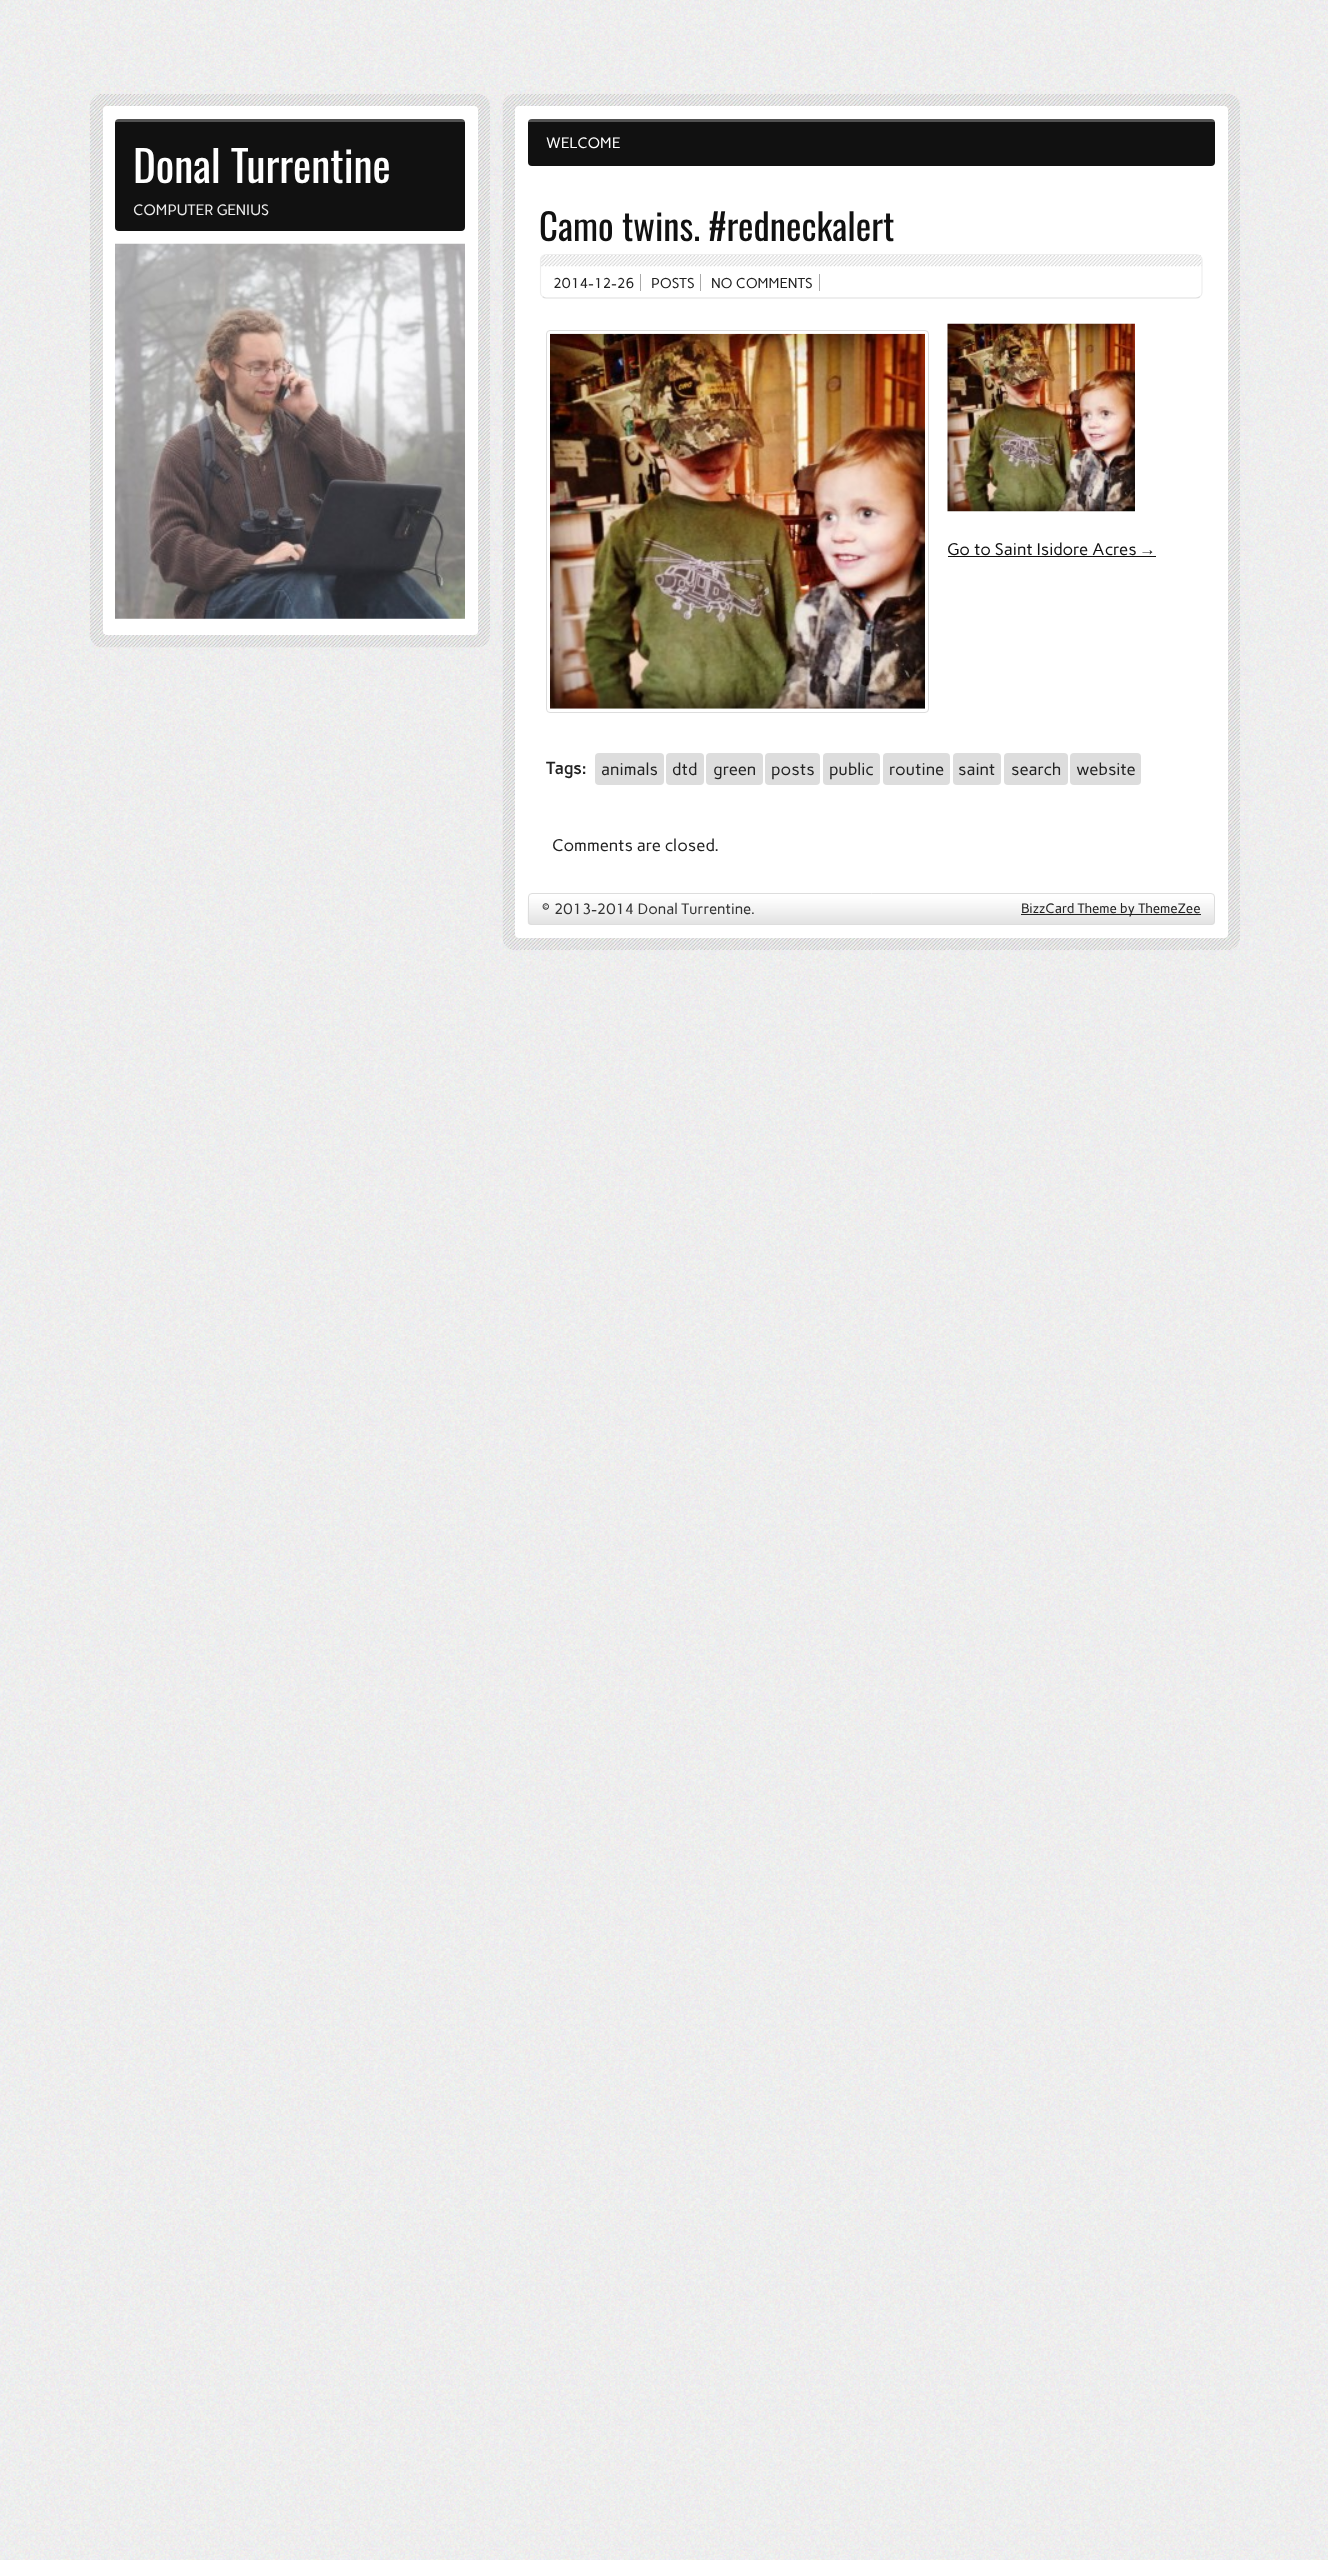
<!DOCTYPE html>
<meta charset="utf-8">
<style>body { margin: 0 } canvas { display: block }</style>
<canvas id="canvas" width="1328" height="2560"></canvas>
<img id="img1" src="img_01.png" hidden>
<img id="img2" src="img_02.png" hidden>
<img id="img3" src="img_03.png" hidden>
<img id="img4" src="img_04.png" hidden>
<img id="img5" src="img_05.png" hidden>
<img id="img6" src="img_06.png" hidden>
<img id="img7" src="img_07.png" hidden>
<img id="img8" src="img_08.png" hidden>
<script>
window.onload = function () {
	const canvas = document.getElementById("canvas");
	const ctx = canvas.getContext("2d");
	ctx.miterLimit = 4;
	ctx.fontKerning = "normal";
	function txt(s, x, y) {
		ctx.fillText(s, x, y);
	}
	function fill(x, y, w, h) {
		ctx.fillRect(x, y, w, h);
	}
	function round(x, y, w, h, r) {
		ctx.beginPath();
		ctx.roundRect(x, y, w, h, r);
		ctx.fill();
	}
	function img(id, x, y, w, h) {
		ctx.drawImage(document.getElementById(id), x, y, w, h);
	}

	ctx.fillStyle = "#FFFFFF";
	fill(0, 0, 1328, 2560);
	img("img1", 0, 0, 1328, 2560);
	img("img2", 90, 94, 400, 554);
	round(103, 106, 375, 529, 4);
	ctx.fillStyle = "#111111";
	round(115, 119, 350, 112, 4);
	ctx.fillStyle = "rgba(255, 255, 255, 0.27)";
	fill(115, 119, 350, 3);
	img("img3", 115, 243, 350, 376);
	img("img4", 502, 94, 738, 856);
	ctx.fillStyle = "#FFFFFF";
	round(515, 106, 713, 832, 4);
	ctx.fillStyle = "#111111";
	round(528, 119, 687, 47, 4);
	ctx.fillStyle = "rgba(255, 255, 255, 0.27)";
	fill(528, 119, 687, 3);
	img("img5", 540, 255, 663, 12);
	ctx.beginPath();
	ctx.moveTo(1200, 296.5);
	ctx.bezierCurveTo(1199, 297.5, 1197.5, 298, 1196, 298);
	ctx.lineTo(546, 298);
	ctx.bezierCurveTo(545, 298, 543.5, 297.5, 542.5, 296.5);
	ctx.strokeStyle = "#DDDDDD";
	ctx.lineWidth = 1.2;
	ctx.stroke();
	ctx.beginPath();
	ctx.moveTo(542.5, 296.5);
	ctx.bezierCurveTo(541, 295.5, 540.5, 294, 540.5, 292.5);
	ctx.lineTo(540.5, 260);
	ctx.bezierCurveTo(540.5, 258.5, 541, 257, 542.5, 256);
	ctx.bezierCurveTo(543.5, 255, 545, 254.5, 546, 254.5);
	ctx.lineTo(1196, 254.5);
	ctx.bezierCurveTo(1197.5, 254.5, 1199, 255, 1200, 256);
	ctx.bezierCurveTo(1201.5, 257, 1202, 258.5, 1202, 260);
	ctx.lineTo(1202, 292.5);
	ctx.bezierCurveTo(1202, 294, 1201.5, 295.5, 1200, 296.5);
	ctx.strokeStyle = "#EEEEEE";
	ctx.stroke();
	ctx.fillStyle = "#AAAAAA";
	fill(640, 274, 1, 17);
	fill(700, 274, 1, 17);
	fill(819, 274, 1, 17);
	ctx.beginPath();
	ctx.roundRect(546.5, 330.5, 382, 382, 3.5);
	ctx.strokeStyle = "#DDDDDD";
	ctx.lineWidth = 1;
	ctx.stroke();
	img("img6", 550, 333, 375, 376);
	img("img7", 947, 323, 188, 189);
	ctx.fillStyle = "#111111";
	fill(948, 556, 208, 1);
	ctx.fillStyle = "#DDDDDD";
	round(595, 753, 69, 32, 4);
	round(666, 753, 38, 32, 4);
	round(706, 753, 57, 32, 4);
	round(765, 753, 55, 32, 4);
	round(823, 753, 57, 32, 4);
	round(883, 753, 67, 32, 4);
	round(953, 753, 48, 32, 4);
	round(1004, 753, 64, 32, 4);
	round(1070, 753, 71, 32, 4);
	img("img8", 527, 893, 688, 32);
	ctx.beginPath();
	ctx.roundRect(528.5, 893.5, 686, 31, 3.5);
	ctx.stroke();
	ctx.fillStyle = "#222222";
	fill(1021, 914, 180, 1);
	ctx.font = "43.25px Oswald";
	ctx.fillStyle = "#FFFFFF";
	txt("Donal Turrentine", 133, 183);
	ctx.font = "15px Carme";
	ctx.fillStyle = "#EEEEEE";
	txt("COMPUTER GENIUS", 133, 215);
	ctx.fillStyle = "#FFFFFF";
	txt("WELCOME", 546, 148);
	ctx.font = "36.75px Oswald";
	ctx.fillStyle = "#111111";
	txt("Camo twins. #redneckalert", 539, 241);
	ctx.font = "14.25px Carme";
	ctx.fillStyle = "#222222";
	txt("2014-12-26", 553, 288);
	txt("POSTS", 651, 288);
	txt("NO COMMENTS", 711, 288);
	ctx.font = "16.75px Carme";
	ctx.fillStyle = "#111111";
	txt("Go to Saint Isidore Acres", 947, 555);
	ctx.font = "16.75px Liberation Sans";
	txt("→", 1139, 555);
	ctx.font = "bold 16.75px Carme";
	ctx.fillStyle = "#222222";
	txt("Tags:", 546, 774);
	ctx.font = "16.75px Carme";
	txt("animals", 601, 775);
	txt("dtd", 672, 775);
	txt("green", 713, 775);
	txt("posts", 771, 775);
	txt("public", 829, 775);
	txt("routine", 889, 775);
	txt("saint", 958, 775);
	txt("search", 1011, 775);
	txt("website", 1076, 775);
	txt("Comments are closed.", 552, 851);
	ctx.font = "15px Carme";
	ctx.fillStyle = "#333333";
	txt("© 2013-2014 Donal Turrentine.", 541, 914);
	ctx.font = "13.5px Carme";
	ctx.fillStyle = "#222222";
	txt("BizzCard Theme by ThemeZee", 1021, 913);
};
</script>
